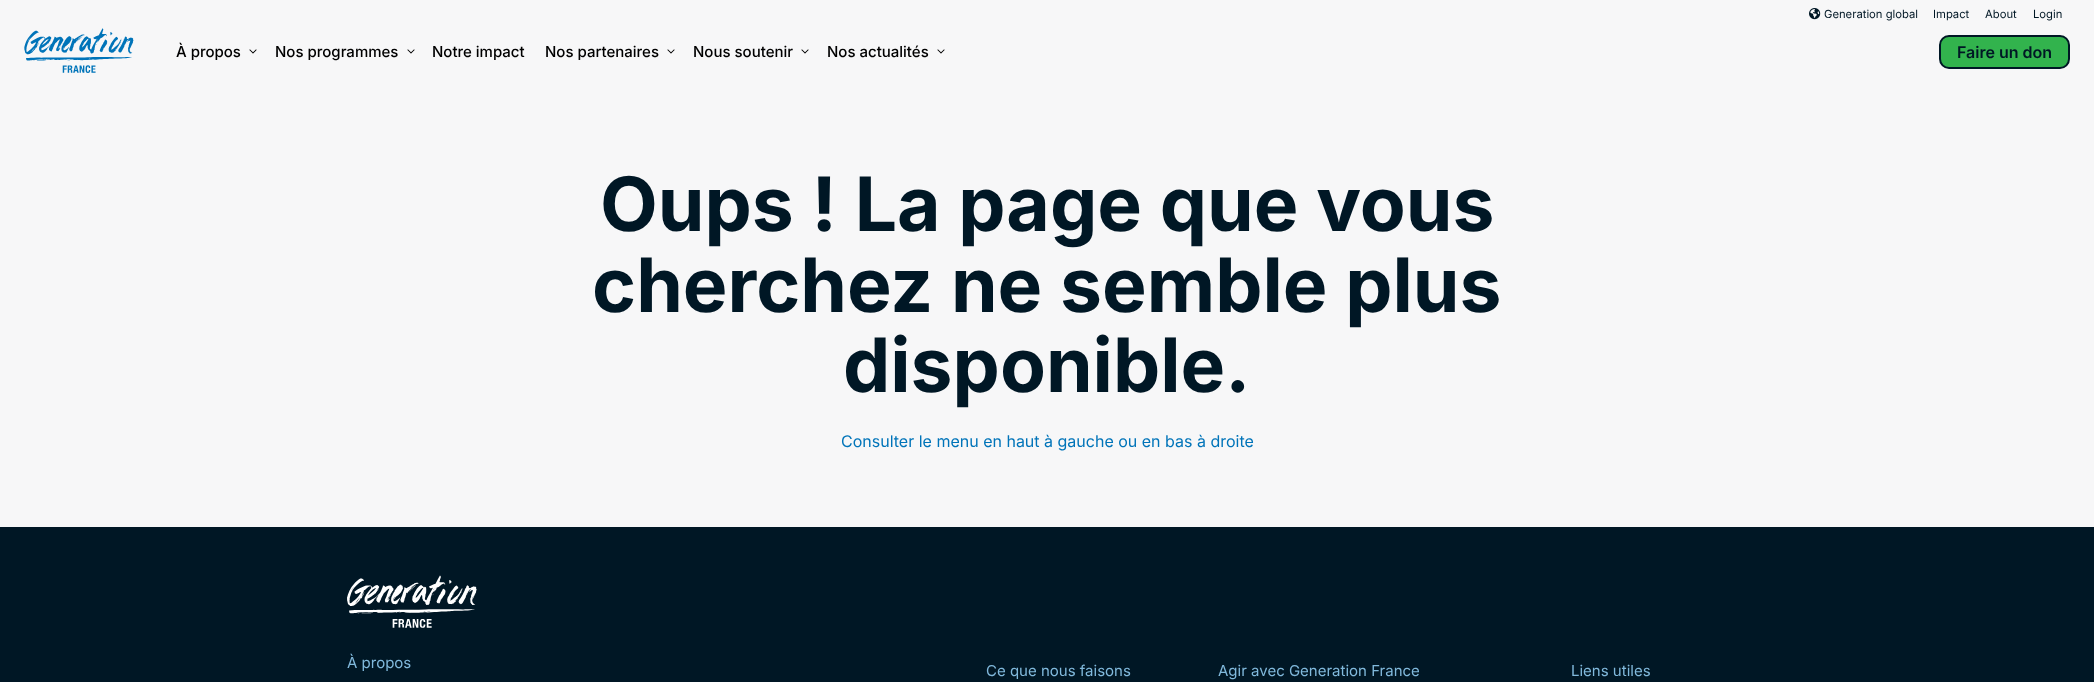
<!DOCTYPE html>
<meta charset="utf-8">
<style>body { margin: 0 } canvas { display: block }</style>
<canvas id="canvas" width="2094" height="682"></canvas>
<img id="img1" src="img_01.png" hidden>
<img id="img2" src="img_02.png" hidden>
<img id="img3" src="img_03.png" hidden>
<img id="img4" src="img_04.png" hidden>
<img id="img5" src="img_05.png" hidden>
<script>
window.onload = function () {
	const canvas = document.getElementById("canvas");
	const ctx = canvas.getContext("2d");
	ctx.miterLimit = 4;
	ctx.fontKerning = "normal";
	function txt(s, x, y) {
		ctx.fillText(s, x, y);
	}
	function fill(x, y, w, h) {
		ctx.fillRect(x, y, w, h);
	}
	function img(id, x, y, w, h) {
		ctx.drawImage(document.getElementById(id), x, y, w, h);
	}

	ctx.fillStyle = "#F7F7F8";
	fill(0, 0, 2094, 682);
	img("img1", 1809, 8, 12, 12);
	img("img2", 24, 28, 110, 45);
	img("img3", 249, 49, 8, 5);
	img("img4", 407, 49, 8, 5);
	img("img4", 667, 49, 8, 5);
	img("img4", 801, 49, 8, 5);
	img("img4", 937, 49, 8, 5);
	ctx.fillStyle = "#32B34D";
	ctx.beginPath();
	ctx.roundRect(1940, 36, 129, 32, 9);
	ctx.fill();
	ctx.strokeStyle = "#001725";
	ctx.lineWidth = 2;
	ctx.stroke();
	ctx.fillStyle = "#001725";
	fill(0, 527, 2094, 155);
	img("img5", 347, 575, 130, 53);
	ctx.font = "11.25px Inter";
	txt("Generation global", 1824, 18);
	txt("Impact", 1933, 18);
	txt("About", 1985, 18);
	txt("Login", 2033, 18);
	ctx.font = "500 15px Inter";
	ctx.fillStyle = "#000000";
	txt("À propos", 176, 57);
	txt("Nos programmes", 275, 57);
	txt("Notre impact", 432, 57);
	txt("Nos partenaires", 545, 57);
	txt("Nous soutenir", 693, 57);
	txt("Nos actualités", 827, 57);
	ctx.font = "600 16px Inter";
	ctx.fillStyle = "#001725";
	txt("Faire un don", 1957, 58);
	ctx.font = "bold 75px Inter";
	txt("Oups ! La page que vous", 600, 231);
	txt("cherchez ne semble plus", 592, 312);
	txt("disponible.", 843, 392);
	ctx.font = "16px Inter";
	ctx.fillStyle = "#0074B9";
	txt("Consulter le menu en haut à gauche ou en bas à droite", 841, 447);
	ctx.font = "15px Inter";
	ctx.fillStyle = "#80B9DC";
	txt("À propos", 347, 668);
	txt("Ce que nous faisons", 986, 676);
	txt("Agir avec Generation France", 1218, 676);
	txt("Liens utiles", 1571, 676);
};
</script>
